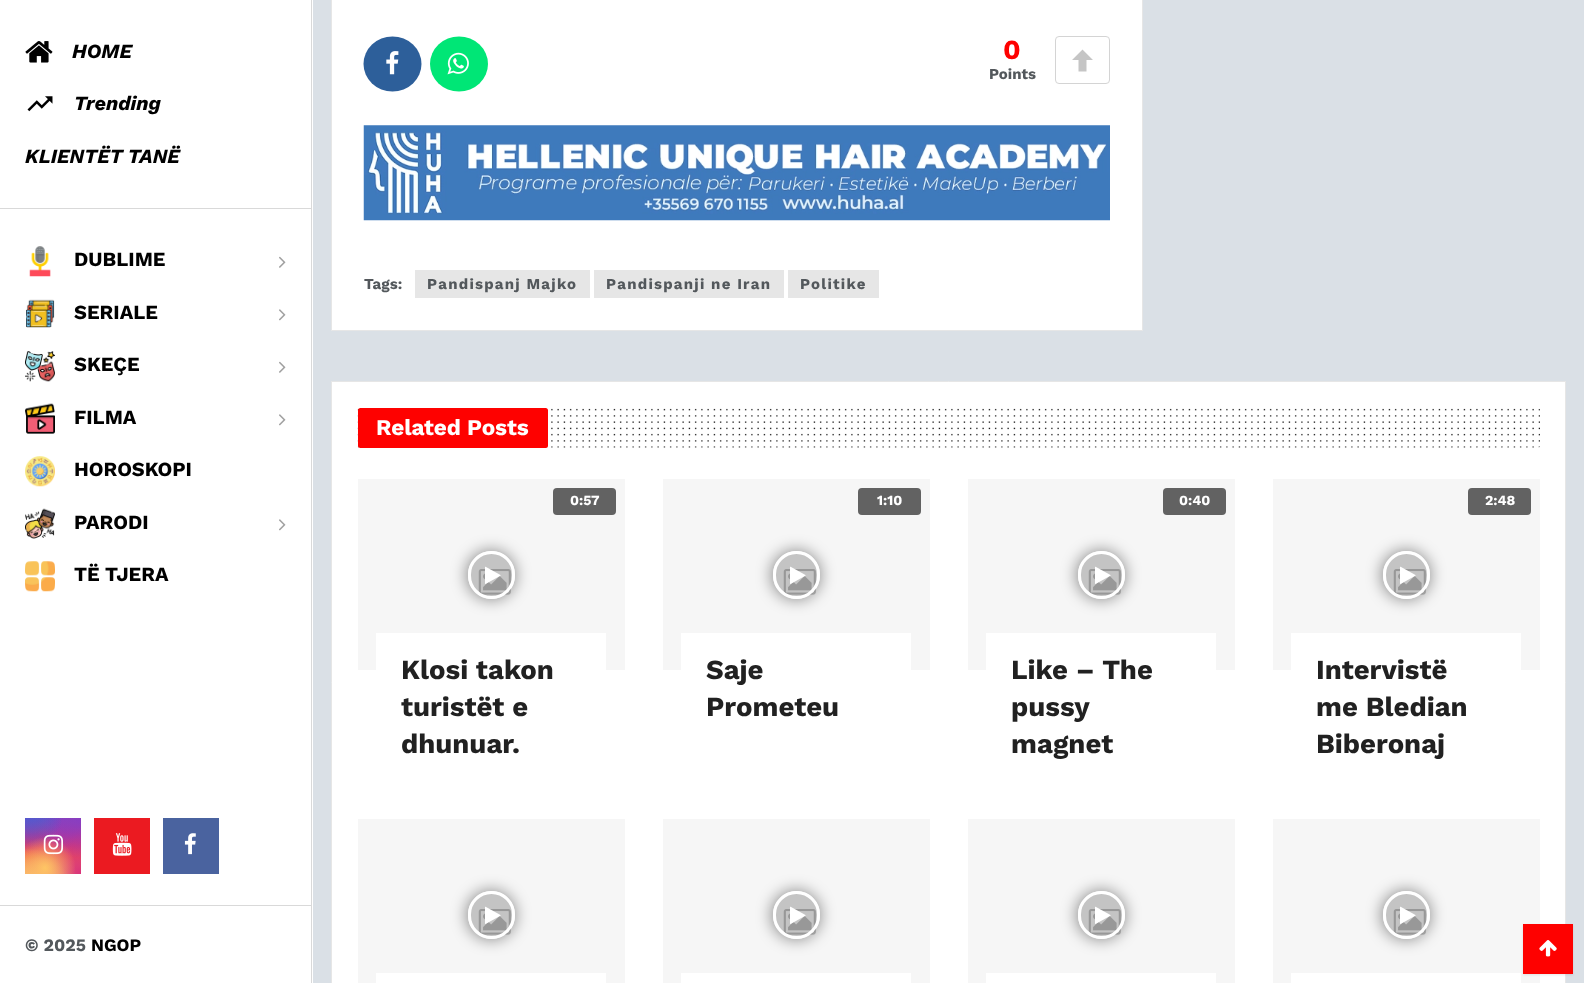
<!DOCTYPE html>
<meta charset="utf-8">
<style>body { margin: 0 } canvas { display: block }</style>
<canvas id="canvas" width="1584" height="983"></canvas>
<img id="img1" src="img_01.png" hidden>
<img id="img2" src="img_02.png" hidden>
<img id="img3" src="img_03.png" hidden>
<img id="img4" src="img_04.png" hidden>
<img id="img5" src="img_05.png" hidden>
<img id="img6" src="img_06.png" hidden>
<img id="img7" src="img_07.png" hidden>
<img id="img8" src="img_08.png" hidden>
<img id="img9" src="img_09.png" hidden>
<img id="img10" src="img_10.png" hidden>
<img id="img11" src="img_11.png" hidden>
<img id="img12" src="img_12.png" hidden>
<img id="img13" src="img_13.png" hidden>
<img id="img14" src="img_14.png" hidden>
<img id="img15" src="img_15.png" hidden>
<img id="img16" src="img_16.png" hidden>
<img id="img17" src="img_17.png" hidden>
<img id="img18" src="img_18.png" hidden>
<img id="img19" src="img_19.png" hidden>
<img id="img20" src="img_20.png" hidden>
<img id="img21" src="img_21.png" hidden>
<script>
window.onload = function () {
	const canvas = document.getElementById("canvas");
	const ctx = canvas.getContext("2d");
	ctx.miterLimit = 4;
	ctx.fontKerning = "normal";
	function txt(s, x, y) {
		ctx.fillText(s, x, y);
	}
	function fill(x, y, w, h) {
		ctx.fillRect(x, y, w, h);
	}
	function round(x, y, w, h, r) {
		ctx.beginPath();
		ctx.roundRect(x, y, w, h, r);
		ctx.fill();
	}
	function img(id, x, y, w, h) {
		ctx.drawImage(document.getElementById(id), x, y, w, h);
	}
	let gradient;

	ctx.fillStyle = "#DAE0E6";
	fill(0, 0, 1584, 983);
	ctx.fillStyle = "#FFFFFF";
	fill(0, 0, 313, 983);
	ctx.fillStyle = "#D9D9D9";
	fill(311, 0, 1, 983);
	fill(0, 208, 311, 1);
	img("img1", 25, 41, 28, 22);
	img("img2", 27, 96, 26, 16);
	img("img3", 29, 246, 22, 31);
	img("img4", 279, 256, 7, 12);
	img("img5", 26, 299, 29, 29);
	img("img6", 279, 309, 7, 12);
	img("img7", 25, 351, 30, 31);
	img("img4", 279, 361, 7, 12);
	img("img8", 25, 403, 30, 31);
	img("img6", 279, 414, 7, 12);
	img("img9", 25, 456, 30, 31);
	img("img10", 25, 508, 30, 31);
	img("img6", 279, 519, 7, 12);
	img("img11", 25, 561, 30, 31);
	fill(0, 905, 311, 1);
	gradient = ctx.createLinearGradient(53, 818, 53, 874);
	gradient.addColorStop(0, "#6559CA");
	gradient.addColorStop(0.3, "#BC318F");
	gradient.addColorStop(0.5, "#E33F5F");
	gradient.addColorStop(0.7, "#F77638");
	gradient.addColorStop(1, "#FEC66D");
	ctx.fillStyle = gradient;
	fill(25, 818, 56, 56);
	gradient = ctx.createRadialGradient(81, 874, 0, 81, 874, 80);
	gradient.addColorStop(0, "#D9317A");
	gradient.addColorStop(1, "rgba(217, 49, 122, 0)");
	ctx.fillStyle = gradient;
	fill(25, 818, 56, 56);
	gradient = ctx.createRadialGradient(59, 407.24, 0, 59, 407.24, 48);
	gradient.addColorStop(0, "#893DC2");
	gradient.addColorStop(0.5, "rgba(137, 61, 194, 0)");
	ctx.fillStyle = gradient;
	ctx.beginPath();
	ctx.rect(38, 818, 42, 34);
	ctx.save();
	ctx.clip();
	ctx.scale(1, 95 / 48);
	ctx.fillRect(0, 0, 1584, 497);
	ctx.restore();
	gradient = ctx.createRadialGradient(81, 818, 0, 81, 818, 80);
	gradient.addColorStop(0, "#893DC2");
	gradient.addColorStop(0.5, "rgba(137, 61, 194, 0)");
	ctx.fillStyle = gradient;
	fill(46, 818, 35, 39);
	gradient = ctx.createRadialGradient(36, 424.34, 0, 36, 424.34, 64);
	gradient.addColorStop(0, "#5258CF");
	gradient.addColorStop(0.5, "rgba(82, 88, 207, 0)");
	ctx.fillStyle = gradient;
	ctx.beginPath();
	ctx.rect(25, 818, 37, 29);
	ctx.save();
	ctx.clip();
	ctx.scale(1, 119 / 64);
	ctx.fillRect(0, 0, 1584, 529);
	ctx.restore();
	gradient = ctx.createRadialGradient(25, 648.89, 0, 25, 648.89, 80);
	gradient.addColorStop(0, "#5258CF");
	gradient.addColorStop(0.5, "rgba(82, 88, 207, 0)");
	ctx.fillStyle = gradient;
	ctx.beginPath();
	ctx.rect(25, 818, 36, 33);
	ctx.save();
	ctx.clip();
	ctx.scale(1, 99 / 80);
	ctx.fillRect(0, 0, 1584, 795);
	ctx.restore();
	gradient = ctx.createRadialGradient(25, 896, 0, 25, 896, 97);
	gradient.addColorStop(0, "#FEC564");
	gradient.addColorStop(0.5, "rgba(254, 197, 100, 0)");
	ctx.fillStyle = gradient;
	fill(25, 849, 42, 25);
	gradient = ctx.createRadialGradient(45, 868, 0, 45, 868, 62);
	gradient.addColorStop(0, "#FEC564");
	gradient.addColorStop(0.5, "rgba(254, 197, 100, 0)");
	ctx.fillStyle = gradient;
	fill(25, 838, 50, 36);
	img("img12", 43, 834, 21, 21);
	ctx.fillStyle = "#EB1A21";
	fill(94, 818, 56, 56);
	img("img13", 112, 833, 20, 23);
	ctx.fillStyle = "#4A639F";
	fill(163, 818, 56, 56);
	img("img14", 184, 833, 12, 22);
	ctx.fillStyle = "#FFFFFF";
	ctx.beginPath();
	ctx.rect(331.5, -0.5, 811, 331);
	ctx.fill();
	ctx.strokeStyle = "#E6E6E6";
	ctx.stroke();
	ctx.fillStyle = "#2D5F9A";
	ctx.beginPath();
	ctx.ellipse(392.5, 64, 29, 27.5, 0, 0, Math.PI * 2);
	ctx.fill();
	img("img15", 386, 51, 13, 24);
	ctx.fillStyle = "#00E676";
	ctx.beginPath();
	ctx.ellipse(459, 64, 29, 27.5, 0, 0, Math.PI * 2);
	ctx.fill();
	img("img16", 447, 52, 22, 23);
	ctx.beginPath();
	ctx.roundRect(1055.5, 36.5, 54, 47, 3.5);
	ctx.strokeStyle = "#D4D4D4";
	ctx.stroke();
	ctx.fillStyle = "#C5C5C5";
	ctx.beginPath();
	ctx.moveTo(1082.5, 49.5);
	ctx.lineTo(1072, 60);
	ctx.lineTo(1078.5, 60);
	ctx.lineTo(1078.5, 71.5);
	ctx.lineTo(1086.5, 71.5);
	ctx.lineTo(1086.5, 60);
	ctx.lineTo(1093, 60);
	ctx.closePath();
	ctx.fill();
	img("img17", 363, 125, 747, 96);
	ctx.fillStyle = "#E6E6E6";
	fill(415, 270, 175, 28);
	fill(594, 270, 190, 28);
	fill(788, 270, 91, 28);
	ctx.fillStyle = "#FFFFFF";
	ctx.beginPath();
	ctx.rect(331.5, 381.5, 1234, 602);
	ctx.fill();
	ctx.strokeStyle = "#E6E6E6";
	ctx.stroke();
	img("img18", 357, 408, 1183, 40);
	ctx.fillStyle = "#FE0100";
	round(358, 408, 190, 40, 2.5);
	ctx.fillStyle = "#F6F6F6";
	fill(358, 479, 267, 191);
	img("img19", 478, 569, 33, 26);
	ctx.fillStyle = "#626262";
	round(553, 488, 63, 27, 4);
	ctx.save();
	ctx.beginPath();
	ctx.moveTo(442, 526);
	ctx.lineTo(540, 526);
	ctx.lineTo(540, 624);
	ctx.lineTo(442, 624);
	ctx.closePath();
	ctx.moveTo(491.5, 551);
	ctx.bezierCurveTo(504.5, 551, 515, 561.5, 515, 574.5);
	ctx.lineTo(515, 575.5);
	ctx.bezierCurveTo(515, 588.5, 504.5, 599, 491.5, 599);
	ctx.bezierCurveTo(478.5, 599, 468, 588.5, 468, 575.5);
	ctx.lineTo(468, 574.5);
	ctx.bezierCurveTo(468, 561.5, 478.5, 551, 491.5, 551);
	ctx.closePath();
	ctx.clip("evenodd");
	ctx.fillStyle = "rgba(0, 0, 0, 0.42)";
	ctx.filter = "blur(7.5px)";
	ctx.beginPath();
	ctx.roundRect(466, 550, 50, 50, 25);
	ctx.fill();
	ctx.filter = "none";
	ctx.restore();
	ctx.fillStyle = "rgba(0, 0, 0, 0.2)";
	ctx.beginPath();
	ctx.roundRect(469.5, 552.5, 44, 45, 22);
	ctx.fill();
	ctx.strokeStyle = "#FFFFFF";
	ctx.lineWidth = 3;
	ctx.stroke();
	img("img20", 485, 566, 16, 18);
	ctx.fillStyle = "#FFFFFF";
	fill(376, 633, 230, 37);
	ctx.fillStyle = "#F6F6F6";
	fill(663, 479, 267, 191);
	img("img19", 783, 569, 33, 26);
	ctx.fillStyle = "#626262";
	round(858, 488, 63, 27, 4);
	ctx.save();
	ctx.beginPath();
	ctx.moveTo(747, 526);
	ctx.lineTo(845, 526);
	ctx.lineTo(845, 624);
	ctx.lineTo(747, 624);
	ctx.closePath();
	ctx.moveTo(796.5, 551);
	ctx.bezierCurveTo(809.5, 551, 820, 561.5, 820, 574.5);
	ctx.lineTo(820, 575.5);
	ctx.bezierCurveTo(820, 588.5, 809.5, 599, 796.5, 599);
	ctx.bezierCurveTo(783.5, 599, 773, 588.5, 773, 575.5);
	ctx.lineTo(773, 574.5);
	ctx.bezierCurveTo(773, 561.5, 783.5, 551, 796.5, 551);
	ctx.closePath();
	ctx.clip("evenodd");
	ctx.fillStyle = "rgba(0, 0, 0, 0.42)";
	ctx.filter = "blur(7.5px)";
	ctx.beginPath();
	ctx.roundRect(771, 550, 50, 50, 25);
	ctx.fill();
	ctx.filter = "none";
	ctx.restore();
	ctx.fillStyle = "rgba(0, 0, 0, 0.2)";
	ctx.beginPath();
	ctx.roundRect(774.5, 552.5, 44, 45, 22);
	ctx.fill();
	ctx.stroke();
	img("img20", 790, 566, 16, 18);
	ctx.fillStyle = "#FFFFFF";
	fill(681, 633, 230, 37);
	ctx.fillStyle = "#F6F6F6";
	fill(968, 479, 267, 191);
	img("img19", 1088, 569, 33, 26);
	ctx.fillStyle = "#626262";
	round(1163, 488, 63, 27, 4);
	ctx.save();
	ctx.beginPath();
	ctx.moveTo(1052, 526);
	ctx.lineTo(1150, 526);
	ctx.lineTo(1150, 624);
	ctx.lineTo(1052, 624);
	ctx.closePath();
	ctx.moveTo(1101.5, 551);
	ctx.bezierCurveTo(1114.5, 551, 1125, 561.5, 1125, 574.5);
	ctx.lineTo(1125, 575.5);
	ctx.bezierCurveTo(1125, 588.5, 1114.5, 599, 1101.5, 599);
	ctx.bezierCurveTo(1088.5, 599, 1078, 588.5, 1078, 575.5);
	ctx.lineTo(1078, 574.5);
	ctx.bezierCurveTo(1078, 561.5, 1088.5, 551, 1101.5, 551);
	ctx.closePath();
	ctx.clip("evenodd");
	ctx.fillStyle = "rgba(0, 0, 0, 0.42)";
	ctx.filter = "blur(7.5px)";
	ctx.beginPath();
	ctx.roundRect(1076, 550, 50, 50, 25);
	ctx.fill();
	ctx.filter = "none";
	ctx.restore();
	ctx.fillStyle = "rgba(0, 0, 0, 0.2)";
	ctx.beginPath();
	ctx.roundRect(1079.5, 552.5, 44, 45, 22);
	ctx.fill();
	ctx.stroke();
	img("img20", 1095, 566, 16, 18);
	ctx.fillStyle = "#FFFFFF";
	fill(986, 633, 230, 37);
	ctx.fillStyle = "#F6F6F6";
	fill(1273, 479, 267, 191);
	img("img19", 1393, 569, 33, 26);
	ctx.fillStyle = "#626262";
	round(1468, 488, 63, 27, 4);
	ctx.save();
	ctx.beginPath();
	ctx.moveTo(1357, 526);
	ctx.lineTo(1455, 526);
	ctx.lineTo(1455, 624);
	ctx.lineTo(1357, 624);
	ctx.closePath();
	ctx.moveTo(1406.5, 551);
	ctx.bezierCurveTo(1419.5, 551, 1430, 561.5, 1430, 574.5);
	ctx.lineTo(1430, 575.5);
	ctx.bezierCurveTo(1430, 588.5, 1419.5, 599, 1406.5, 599);
	ctx.bezierCurveTo(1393.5, 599, 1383, 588.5, 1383, 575.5);
	ctx.lineTo(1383, 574.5);
	ctx.bezierCurveTo(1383, 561.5, 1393.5, 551, 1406.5, 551);
	ctx.closePath();
	ctx.clip("evenodd");
	ctx.fillStyle = "rgba(0, 0, 0, 0.42)";
	ctx.filter = "blur(7.5px)";
	ctx.beginPath();
	ctx.roundRect(1381, 550, 50, 50, 25);
	ctx.fill();
	ctx.filter = "none";
	ctx.restore();
	ctx.fillStyle = "rgba(0, 0, 0, 0.2)";
	ctx.beginPath();
	ctx.roundRect(1384.5, 552.5, 44, 45, 22);
	ctx.fill();
	ctx.stroke();
	img("img20", 1400, 566, 16, 18);
	ctx.fillStyle = "#FFFFFF";
	fill(1291, 633, 230, 37);
	ctx.fillStyle = "#F6F6F6";
	fill(358, 819, 267, 164);
	img("img19", 478, 909, 33, 26);
	ctx.save();
	ctx.beginPath();
	ctx.moveTo(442, 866);
	ctx.lineTo(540, 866);
	ctx.lineTo(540, 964);
	ctx.lineTo(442, 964);
	ctx.closePath();
	ctx.moveTo(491.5, 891);
	ctx.bezierCurveTo(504.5, 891, 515, 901.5, 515, 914.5);
	ctx.lineTo(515, 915.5);
	ctx.bezierCurveTo(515, 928.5, 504.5, 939, 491.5, 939);
	ctx.bezierCurveTo(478.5, 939, 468, 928.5, 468, 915.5);
	ctx.lineTo(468, 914.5);
	ctx.bezierCurveTo(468, 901.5, 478.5, 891, 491.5, 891);
	ctx.closePath();
	ctx.clip("evenodd");
	ctx.fillStyle = "rgba(0, 0, 0, 0.42)";
	ctx.filter = "blur(7.5px)";
	ctx.beginPath();
	ctx.roundRect(466, 890, 50, 50, 25);
	ctx.fill();
	ctx.filter = "none";
	ctx.restore();
	ctx.fillStyle = "rgba(0, 0, 0, 0.2)";
	ctx.beginPath();
	ctx.roundRect(469.5, 892.5, 44, 45, 22);
	ctx.fill();
	ctx.stroke();
	img("img20", 485, 906, 16, 18);
	ctx.fillStyle = "#FFFFFF";
	fill(376, 973, 230, 10);
	ctx.fillStyle = "#F6F6F6";
	fill(663, 819, 267, 164);
	img("img19", 783, 909, 33, 26);
	ctx.save();
	ctx.beginPath();
	ctx.moveTo(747, 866);
	ctx.lineTo(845, 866);
	ctx.lineTo(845, 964);
	ctx.lineTo(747, 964);
	ctx.closePath();
	ctx.moveTo(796.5, 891);
	ctx.bezierCurveTo(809.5, 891, 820, 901.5, 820, 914.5);
	ctx.lineTo(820, 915.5);
	ctx.bezierCurveTo(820, 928.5, 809.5, 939, 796.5, 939);
	ctx.bezierCurveTo(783.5, 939, 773, 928.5, 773, 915.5);
	ctx.lineTo(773, 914.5);
	ctx.bezierCurveTo(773, 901.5, 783.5, 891, 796.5, 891);
	ctx.closePath();
	ctx.clip("evenodd");
	ctx.fillStyle = "rgba(0, 0, 0, 0.42)";
	ctx.filter = "blur(7.5px)";
	ctx.beginPath();
	ctx.roundRect(771, 890, 50, 50, 25);
	ctx.fill();
	ctx.filter = "none";
	ctx.restore();
	ctx.fillStyle = "rgba(0, 0, 0, 0.2)";
	ctx.beginPath();
	ctx.roundRect(774.5, 892.5, 44, 45, 22);
	ctx.fill();
	ctx.stroke();
	img("img20", 790, 906, 16, 18);
	ctx.fillStyle = "#FFFFFF";
	fill(681, 973, 230, 10);
	ctx.fillStyle = "#F6F6F6";
	fill(968, 819, 267, 164);
	img("img19", 1088, 909, 33, 26);
	ctx.save();
	ctx.beginPath();
	ctx.moveTo(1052, 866);
	ctx.lineTo(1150, 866);
	ctx.lineTo(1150, 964);
	ctx.lineTo(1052, 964);
	ctx.closePath();
	ctx.moveTo(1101.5, 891);
	ctx.bezierCurveTo(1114.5, 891, 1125, 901.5, 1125, 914.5);
	ctx.lineTo(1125, 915.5);
	ctx.bezierCurveTo(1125, 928.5, 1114.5, 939, 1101.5, 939);
	ctx.bezierCurveTo(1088.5, 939, 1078, 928.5, 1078, 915.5);
	ctx.lineTo(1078, 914.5);
	ctx.bezierCurveTo(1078, 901.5, 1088.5, 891, 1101.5, 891);
	ctx.closePath();
	ctx.clip("evenodd");
	ctx.fillStyle = "rgba(0, 0, 0, 0.42)";
	ctx.filter = "blur(7.5px)";
	ctx.beginPath();
	ctx.roundRect(1076, 890, 50, 50, 25);
	ctx.fill();
	ctx.filter = "none";
	ctx.restore();
	ctx.fillStyle = "rgba(0, 0, 0, 0.2)";
	ctx.beginPath();
	ctx.roundRect(1079.5, 892.5, 44, 45, 22);
	ctx.fill();
	ctx.stroke();
	img("img20", 1095, 906, 16, 18);
	ctx.fillStyle = "#FFFFFF";
	fill(986, 973, 230, 10);
	ctx.fillStyle = "#F6F6F6";
	fill(1273, 819, 267, 164);
	img("img19", 1393, 909, 33, 26);
	ctx.save();
	ctx.beginPath();
	ctx.moveTo(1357, 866);
	ctx.lineTo(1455, 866);
	ctx.lineTo(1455, 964);
	ctx.lineTo(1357, 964);
	ctx.closePath();
	ctx.moveTo(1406.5, 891);
	ctx.bezierCurveTo(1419.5, 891, 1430, 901.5, 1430, 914.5);
	ctx.lineTo(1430, 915.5);
	ctx.bezierCurveTo(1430, 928.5, 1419.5, 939, 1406.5, 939);
	ctx.bezierCurveTo(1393.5, 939, 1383, 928.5, 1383, 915.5);
	ctx.lineTo(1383, 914.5);
	ctx.bezierCurveTo(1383, 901.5, 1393.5, 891, 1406.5, 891);
	ctx.closePath();
	ctx.clip("evenodd");
	ctx.fillStyle = "rgba(0, 0, 0, 0.42)";
	ctx.filter = "blur(7.5px)";
	ctx.beginPath();
	ctx.roundRect(1381, 890, 50, 50, 25);
	ctx.fill();
	ctx.filter = "none";
	ctx.restore();
	ctx.fillStyle = "rgba(0, 0, 0, 0.2)";
	ctx.beginPath();
	ctx.roundRect(1384.5, 892.5, 44, 45, 22);
	ctx.fill();
	ctx.stroke();
	img("img20", 1400, 906, 16, 18);
	ctx.fillStyle = "#FFFFFF";
	fill(1291, 973, 230, 10);
	ctx.fillStyle = "rgba(0, 0, 0, 0.09)";
	ctx.filter = "blur(1px)";
	ctx.beginPath();
	ctx.rect(1523, 925, 50, 50);
	ctx.fill();
	ctx.filter = "none";
	ctx.fillStyle = "#FE0100";
	fill(1523, 924, 50, 50);
	img("img21", 1539, 940, 18, 17);
	ctx.font = "italic bold 20px Work Sans";
	ctx.fillStyle = "#000000";
	txt("HOME", 72, 58);
	txt("Trending", 74, 110);
	txt("KLIENTËT TANË", 25, 163);
	ctx.font = "bold 20px Work Sans";
	txt("DUBLIME", 74, 266);
	txt("SERIALE", 74, 319);
	txt("SKEÇE", 74, 371);
	txt("FILMA", 74, 424);
	txt("HOROSKOPI", 74, 476);
	txt("PARODI", 74, 529);
	txt("TË TJERA", 74, 581);
	ctx.font = "bold 17.5px Work Sans";
	ctx.fillStyle = "#53585C";
	txt("© 2025", 25, 951);
	ctx.fillStyle = "#000000";
	txt("NGOP", 91, 951);
	ctx.font = "bold 27.5px Work Sans";
	ctx.fillStyle = "#FE0100";
	txt("0", 1003, 59);
	ctx.font = "bold 15px Work Sans";
	ctx.fillStyle = "#53585C";
	txt("Points", 989, 79);
	txt("Tags:", 364, 289);
	ctx.letterSpacing = "1.25px";
	txt("Pandispanj Majko", 427, 289);
	txt("Pandispanji ne Iran", 606, 289);
	txt("Politike", 800, 289);
	ctx.letterSpacing = "-0.1px";
	ctx.font = "bold 22.5px Work Sans";
	ctx.fillStyle = "#FFFFFF";
	txt("Related Posts", 376, 435);
	ctx.letterSpacing = "0px";
	ctx.font = "bold 14px Work Sans";
	txt("0:57", 570, 505);
	ctx.font = "bold 27.5px Work Sans";
	ctx.fillStyle = "#212121";
	txt("Klosi takon", 401, 679);
	txt("turistët e", 401, 716);
	txt("dhunuar.", 401, 753);
	ctx.font = "bold 14px Work Sans";
	ctx.fillStyle = "#FFFFFF";
	txt("1:10", 877, 505);
	ctx.font = "bold 27.5px Work Sans";
	ctx.fillStyle = "#212121";
	txt("Saje", 706, 679);
	txt("Prometeu", 706, 716);
	ctx.font = "bold 14px Work Sans";
	ctx.fillStyle = "#FFFFFF";
	txt("0:40", 1179, 505);
	ctx.font = "bold 27.5px Work Sans";
	ctx.fillStyle = "#212121";
	txt("Like – The", 1011, 679);
	txt("pussy", 1011, 716);
	txt("magnet", 1011, 753);
	ctx.font = "bold 14px Work Sans";
	ctx.fillStyle = "#FFFFFF";
	txt("2:48", 1485, 505);
	ctx.font = "bold 27.5px Work Sans";
	ctx.fillStyle = "#212121";
	txt("Intervistë", 1316, 679);
	txt("me Bledian", 1316, 716);
	txt("Biberonaj", 1316, 753);
};
</script>
